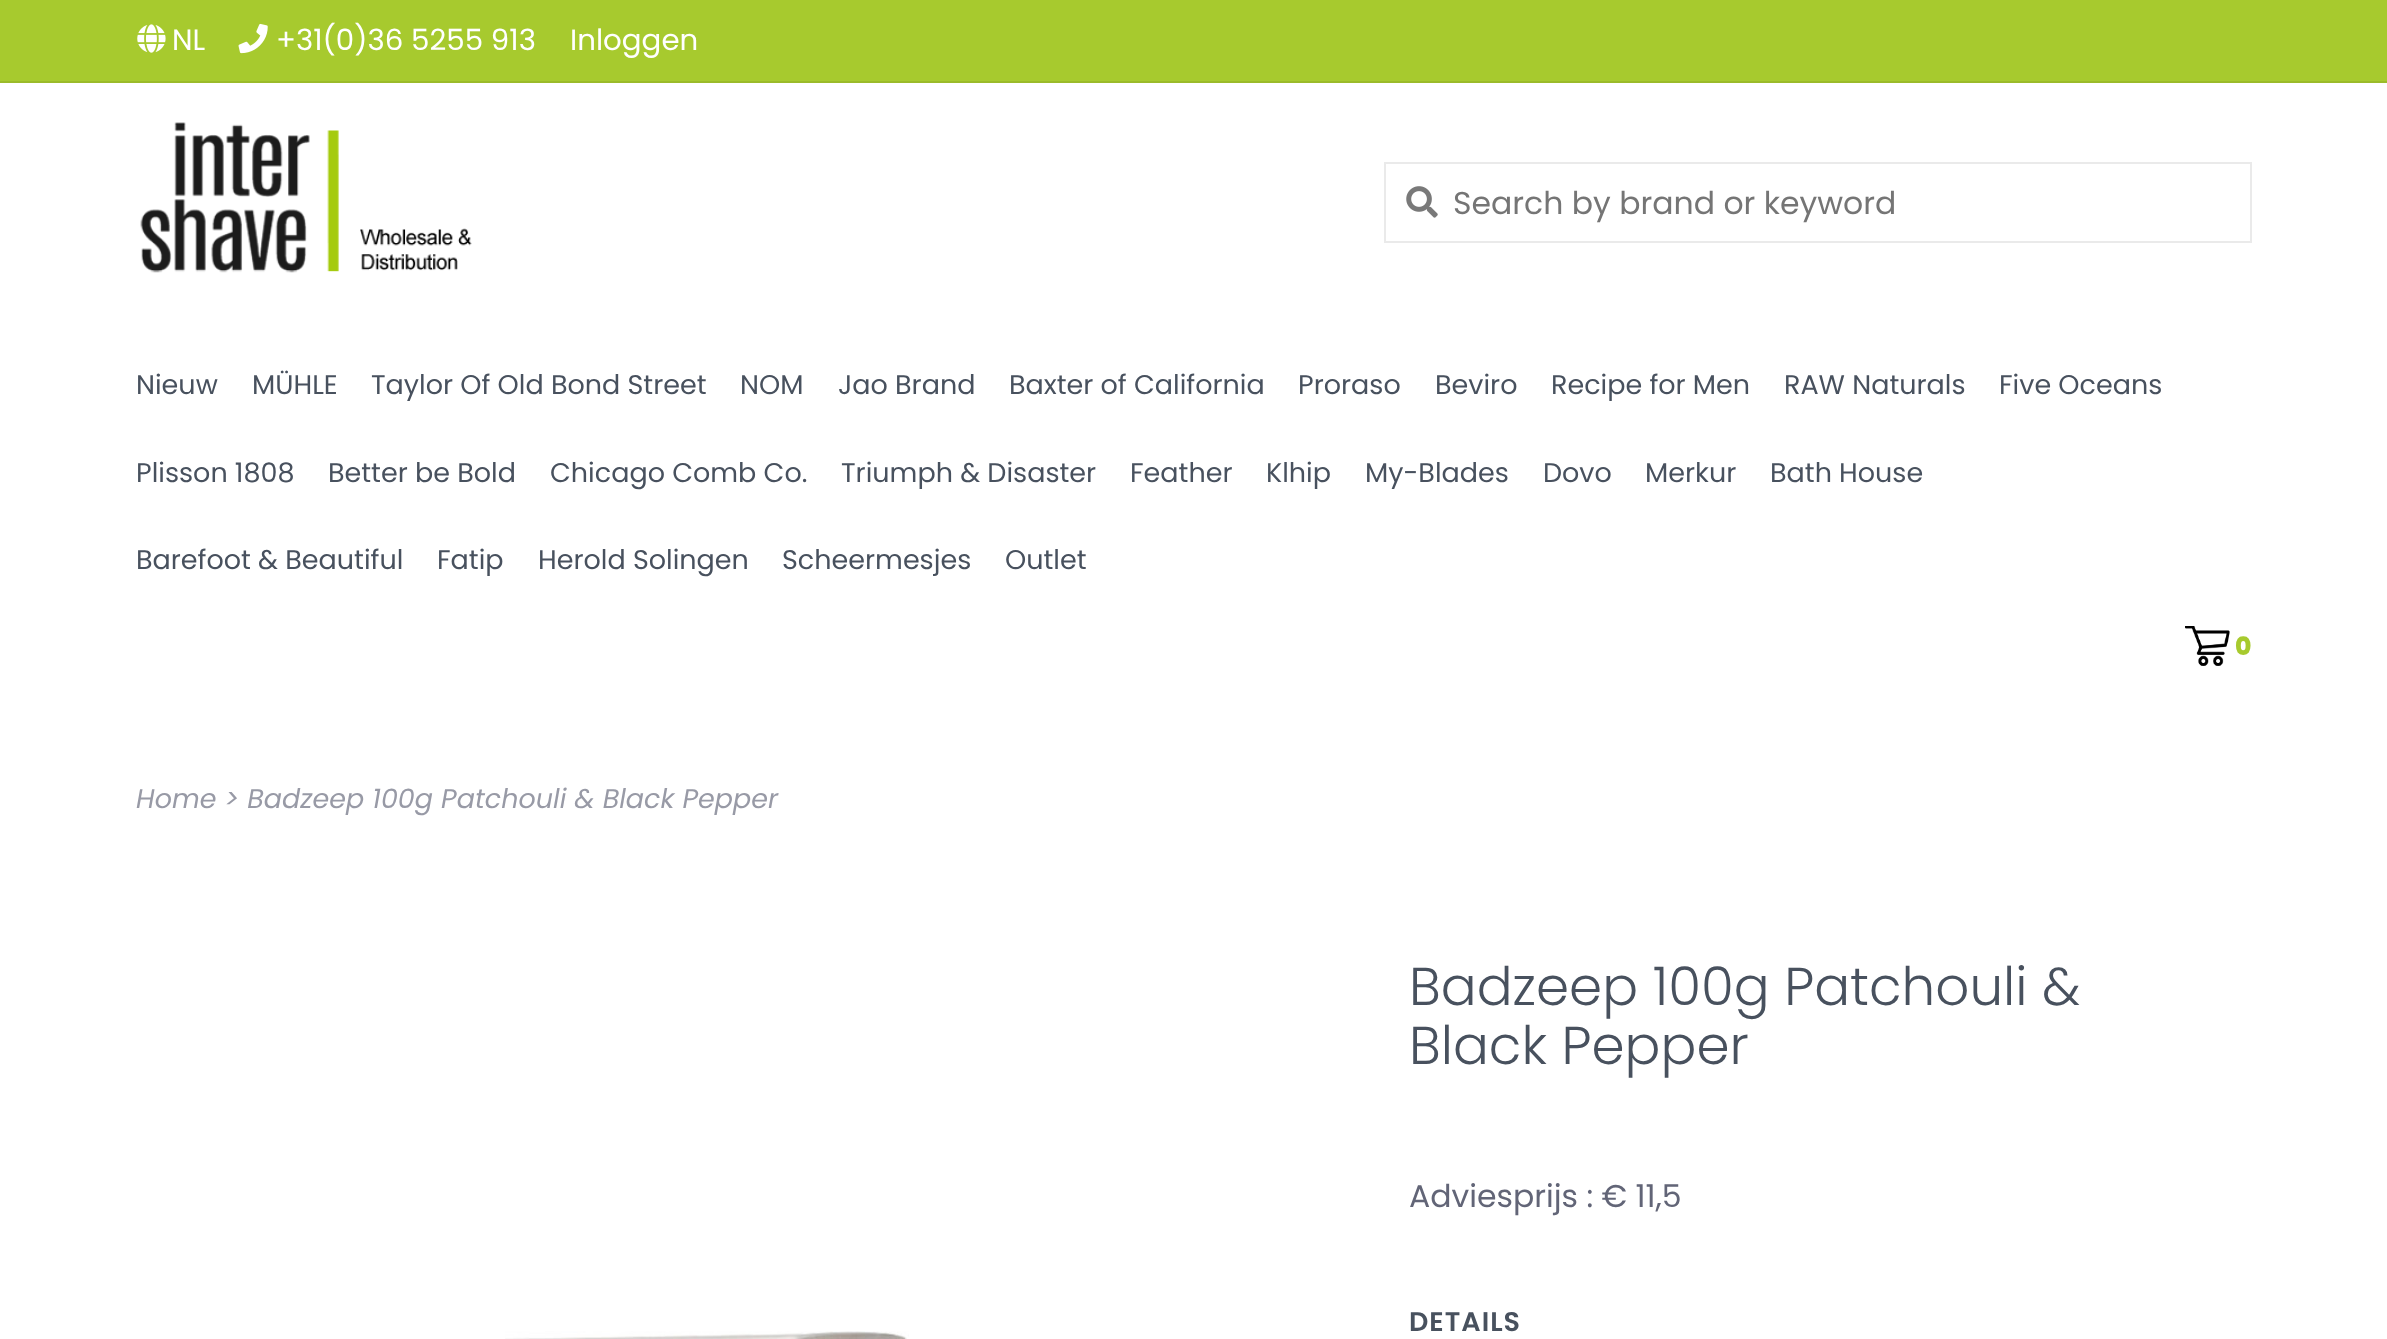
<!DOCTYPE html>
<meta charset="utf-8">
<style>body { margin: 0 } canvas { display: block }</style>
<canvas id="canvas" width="2387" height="1339"></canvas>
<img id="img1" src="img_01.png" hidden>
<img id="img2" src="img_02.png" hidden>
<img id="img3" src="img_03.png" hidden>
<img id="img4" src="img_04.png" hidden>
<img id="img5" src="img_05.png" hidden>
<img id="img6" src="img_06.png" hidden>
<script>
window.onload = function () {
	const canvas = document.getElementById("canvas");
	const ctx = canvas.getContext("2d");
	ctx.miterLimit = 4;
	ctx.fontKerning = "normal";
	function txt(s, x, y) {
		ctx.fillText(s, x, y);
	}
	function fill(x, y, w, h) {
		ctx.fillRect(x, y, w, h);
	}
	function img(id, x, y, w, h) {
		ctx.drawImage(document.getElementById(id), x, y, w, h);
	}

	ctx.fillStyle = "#FFFFFF";
	fill(0, 0, 2387, 1339);
	ctx.fillStyle = "#A7CA2E";
	fill(0, 0, 2387, 81);
	ctx.fillStyle = "#9BBB2A";
	fill(0, 81, 2387, 2);
	img("img1", 137, 24, 29, 29);
	img("img2", 238, 23, 30, 31);
	img("img3", 140, 122, 332, 151);
	ctx.strokeStyle = "#EAEAEA";
	ctx.lineWidth = 2;
	ctx.strokeRect(1385, 163, 866, 79);
	img("img4", 1406, 186, 32, 32);
	img("img5", 2185, 626, 45, 40);
	img("img6", 505, 1331, 404, 8);
	ctx.font = "29.25px Poppins";
	ctx.fillStyle = "#FFFFFF";
	txt("NL", 172, 50);
	txt("+31(0)36 5255 913", 276, 50);
	txt("Inloggen", 570, 50);
	ctx.font = "31.5px Poppins";
	ctx.fillStyle = "#757575";
	txt("Search by brand or keyword", 1453, 214);
	ctx.font = "27px Poppins";
	ctx.fillStyle = "#48515E";
	txt("Nieuw", 136, 394);
	txt("MÜHLE", 252, 394);
	txt("Taylor Of Old Bond Street", 371, 394);
	txt("NOM", 740, 394);
	txt("Jao Brand", 838, 394);
	txt("Baxter of California", 1009, 394);
	txt("Proraso", 1298, 394);
	txt("Beviro", 1435, 394);
	txt("Recipe for Men", 1551, 394);
	txt("RAW Naturals", 1784, 394);
	txt("Five Oceans", 1999, 394);
	txt("Plisson 1808", 136, 482);
	txt("Better be Bold", 328, 482);
	txt("Chicago Comb Co.", 550, 482);
	txt("Triumph & Disaster", 841, 482);
	txt("Feather", 1130, 482);
	txt("Klhip", 1266, 482);
	txt("My-Blades", 1365, 482);
	txt("Dovo", 1543, 482);
	txt("Merkur", 1645, 482);
	txt("Bath House", 1770, 482);
	txt("Barefoot & Beautiful", 136, 569);
	txt("Fatip", 437, 569);
	txt("Herold Solingen", 538, 569);
	txt("Scheermesjes", 782, 569);
	txt("Outlet", 1005, 569);
	ctx.font = "800 25px Poppins";
	ctx.fillStyle = "#A7CA2E";
	txt("0", 2235, 655);
	ctx.font = "italic 27px Poppins";
	ctx.fillStyle = "#989AA6";
	txt("Home > Badzeep 100g Patchouli & Black Pepper", 136, 808);
	ctx.font = "300 53.2px Poppins";
	ctx.fillStyle = "#48515E";
	txt("Badzeep 100g Patchouli &", 1409, 1005);
	txt("Black Pepper", 1409, 1064);
	ctx.font = "31.5px Poppins";
	ctx.fillStyle = "#626577";
	txt("Adviesprijs : € 11,5", 1409, 1207);
	ctx.letterSpacing = "1px";
	ctx.font = "600 27px Poppins";
	ctx.fillStyle = "#48515E";
	txt("DETAILS", 1409, 1331);
};
</script>
